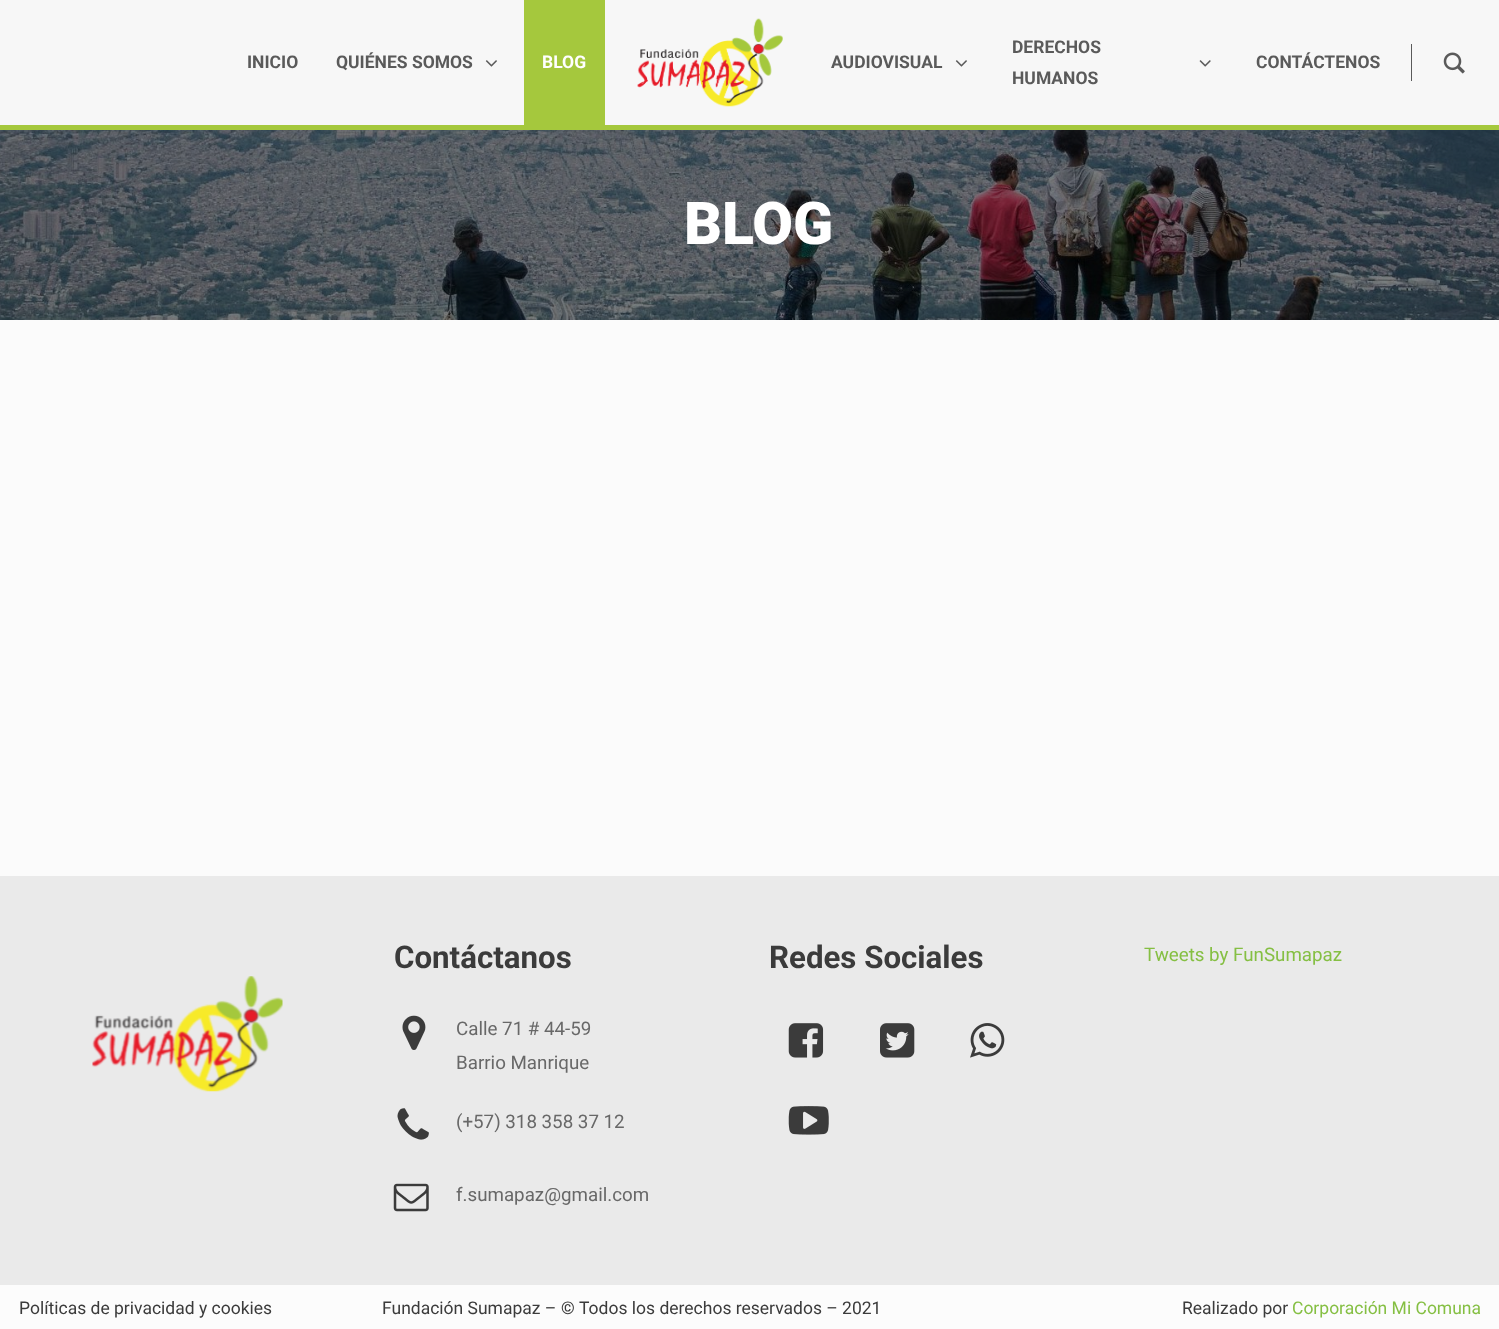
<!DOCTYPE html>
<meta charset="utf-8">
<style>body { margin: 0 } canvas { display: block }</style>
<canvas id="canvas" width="1499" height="1329"></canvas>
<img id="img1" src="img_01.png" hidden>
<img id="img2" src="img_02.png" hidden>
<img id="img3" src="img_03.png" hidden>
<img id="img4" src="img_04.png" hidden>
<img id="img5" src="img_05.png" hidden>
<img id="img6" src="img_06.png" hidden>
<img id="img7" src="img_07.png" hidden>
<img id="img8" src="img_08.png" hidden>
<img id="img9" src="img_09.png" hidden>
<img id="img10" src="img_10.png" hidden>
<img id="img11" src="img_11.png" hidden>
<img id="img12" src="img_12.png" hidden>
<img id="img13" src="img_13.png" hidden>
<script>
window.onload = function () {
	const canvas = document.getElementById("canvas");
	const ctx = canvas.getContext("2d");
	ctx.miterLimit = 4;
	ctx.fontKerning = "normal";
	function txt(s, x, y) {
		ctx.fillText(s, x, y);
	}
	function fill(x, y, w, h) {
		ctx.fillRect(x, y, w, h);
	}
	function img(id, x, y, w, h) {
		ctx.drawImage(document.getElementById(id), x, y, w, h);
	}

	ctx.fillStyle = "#EAEAEA";
	fill(0, 0, 1499, 1329);
	ctx.fillStyle = "#F7F7F7";
	fill(0, 0, 1499, 125);
	ctx.fillStyle = "#A5C83D";
	fill(0, 125, 1499, 5);
	img("img1", 637, 18, 146, 89);
	img("img2", 485, 60, 12, 7);
	fill(524, 0, 81, 125);
	img("img2", 955, 60, 12, 7);
	img("img3", 1199, 60, 12, 7);
	ctx.fillStyle = "#5A5A5A";
	fill(1411, 44, 1, 37);
	img("img4", 1443, 52, 22, 22);
	ctx.fillStyle = "#FBFBFB";
	fill(0, 320, 1499, 556);
	img("img5", 0, 130, 1499, 190);
	img("img6", 402, 1015, 24, 35);
	img("img7", 397, 1108, 32, 32);
	img("img8", 393, 1183, 36, 29);
	img("img9", 788, 1023, 36, 35);
	img("img10", 880, 1023, 35, 35);
	img("img11", 970, 1023, 35, 35);
	img("img12", 788, 1106, 41, 29);
	img("img13", 92, 976, 191, 116);
	ctx.fillStyle = "#FCFCFC";
	fill(0, 1285, 1499, 44);
	ctx.font = "bold 17.5px Roboto";
	ctx.fillStyle = "#5A5A5A";
	txt("INICIO", 247, 68);
	txt("QUIÉNES SOMOS", 336, 68);
	ctx.fillStyle = "#FFFFFF";
	txt("BLOG", 542, 68);
	ctx.fillStyle = "#5A5A5A";
	txt("AUDIOVISUAL", 831, 68);
	txt("DERECHOS", 1012, 53);
	txt("HUMANOS", 1012, 84);
	txt("CONTÁCTENOS", 1256, 68);
	ctx.font = "900 59px Roboto";
	ctx.fillStyle = "#FFFFFF";
	txt("BLOG", 684, 244);
	ctx.font = "bold 31.25px Roboto";
	ctx.fillStyle = "#3B3B3B";
	txt("Contáctanos", 394, 968);
	ctx.font = "18.75px Roboto";
	ctx.fillStyle = "#686868";
	txt("Calle 71 # 44-59", 456, 1035);
	txt("Barrio Manrique", 456, 1069);
	txt("(+57) 318 358 37 12", 456, 1128);
	txt("f.sumapaz@gmail.com", 456, 1201);
	ctx.font = "bold 31.25px Roboto";
	ctx.fillStyle = "#3B3B3B";
	txt("Redes Sociales", 769, 968);
	ctx.font = "18.75px Roboto";
	ctx.fillStyle = "#85BF43";
	txt("Tweets by FunSumapaz", 1144, 961);
	ctx.font = "17.5px Roboto";
	ctx.fillStyle = "#3B3B3B";
	txt("Políticas de privacidad y cookies", 19, 1314);
	txt("Fundación Sumapaz –", 382, 1314);
	ctx.font = "bold 17.5px Roboto";
	txt("©", 561, 1314);
	ctx.font = "17.5px Roboto";
	txt("Todos los derechos reservados – 2021", 579, 1314);
	txt("Realizado por", 1182, 1314);
	ctx.fillStyle = "#85BF43";
	txt("Corporación Mi Comuna", 1292, 1314);
};
</script>
